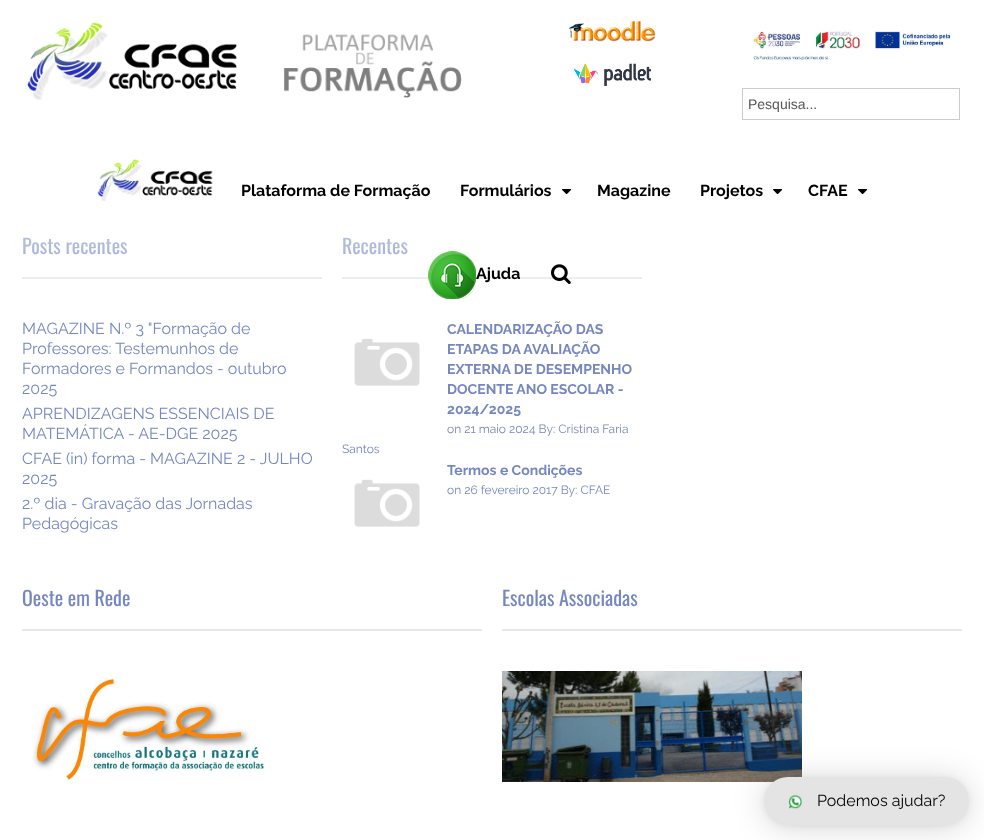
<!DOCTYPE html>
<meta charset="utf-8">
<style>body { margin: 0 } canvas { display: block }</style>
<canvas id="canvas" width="984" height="840"></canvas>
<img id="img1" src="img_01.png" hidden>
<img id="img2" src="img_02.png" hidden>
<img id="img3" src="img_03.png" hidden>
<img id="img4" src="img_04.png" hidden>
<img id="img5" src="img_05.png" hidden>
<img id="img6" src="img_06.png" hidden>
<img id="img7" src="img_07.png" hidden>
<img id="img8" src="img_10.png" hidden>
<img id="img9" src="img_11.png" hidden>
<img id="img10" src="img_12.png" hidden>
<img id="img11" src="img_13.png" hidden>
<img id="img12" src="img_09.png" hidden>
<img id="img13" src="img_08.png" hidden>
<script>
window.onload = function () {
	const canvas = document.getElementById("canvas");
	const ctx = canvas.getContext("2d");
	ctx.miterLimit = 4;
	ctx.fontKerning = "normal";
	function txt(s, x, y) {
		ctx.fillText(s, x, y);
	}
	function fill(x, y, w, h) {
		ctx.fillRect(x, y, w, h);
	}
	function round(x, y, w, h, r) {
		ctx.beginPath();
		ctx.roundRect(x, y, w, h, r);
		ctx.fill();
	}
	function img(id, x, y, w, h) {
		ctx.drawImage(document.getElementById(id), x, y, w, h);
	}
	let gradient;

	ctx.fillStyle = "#FFFFFF";
	fill(0, 0, 984, 840);
	img("img1", 27, 22, 210, 78);
	img("img2", 284, 34, 178, 64);
	img("img3", 568, 20, 88, 22);
	img("img4", 574, 63, 77, 23);
	img("img5", 752, 30, 199, 31);
	ctx.strokeStyle = "#CCCCCC";
	ctx.strokeRect(742.5, 88.5, 217, 31);
	img("img6", 97, 159, 116, 42);
	img("img7", 562, 189, 10, 6);
	img("img7", 773, 189, 10, 6);
	img("img7", 858, 189, 10, 6);
	ctx.fillStyle = "#E7E7E7";
	fill(22, 277, 300, 2);
	fill(342, 277, 300, 2);
	img("img8", 354, 338, 66, 48);
	img("img8", 354, 479, 66, 48);
	fill(22, 629, 460, 2);
	img("img9", 33, 677, 232, 107);
	fill(502, 629, 460, 2);
	img("img10", 502, 671, 300, 111);
	ctx.fillStyle = "rgba(0, 0, 0, 0.16)";
	ctx.filter = "blur(16px)";
	ctx.beginPath();
	ctx.roundRect(764, 779, 205, 48, 24);
	ctx.fill();
	ctx.filter = "none";
	ctx.fillStyle = "rgba(0, 0, 0, 0.06)";
	ctx.filter = "blur(3px)";
	ctx.beginPath();
	ctx.roundRect(764, 778, 205, 48, 24);
	ctx.fill();
	ctx.filter = "none";
	ctx.fillStyle = "#E4E4E4";
	round(764, 777, 205, 48, 24);
	img("img11", 788, 794, 14, 15);
	ctx.font = "14px Liberation Sans";
	ctx.fillStyle = "#555555";
	txt("Pesquisa...", 748, 109);
	ctx.font = "bold 16px Raleway";
	ctx.fillStyle = "#000000";
	txt("Plataforma de Formação", 241, 196);
	txt("Formulários", 460, 196);
	txt("Magazine", 597, 196);
	txt("Projetos", 700, 196);
	txt("CFAE", 808, 196);
	ctx.font = "20px Oswald";
	ctx.fillStyle = "#7687BF";
	txt("Posts recentes", 22, 254);
	ctx.font = "16px Raleway";
	txt("MAGAZINE N.º 3 \"Formação de", 22, 334);
	txt("Professores: Testemunhos de", 22, 354);
	txt("Formadores e Formandos - outubro", 22, 374);
	txt("2025", 22, 394);
	txt("APRENDIZAGENS ESSENCIAIS DE", 22, 419);
	txt("MATEMÁTICA - AE-DGE 2025", 22, 439);
	txt("CFAE (in) forma - MAGAZINE 2 - JULHO", 22, 464);
	txt("2025", 22, 484);
	txt("2.º dia - Gravação das Jornadas", 22, 509);
	txt("Pedagógicas", 22, 529);
	ctx.font = "20px Oswald";
	txt("Recentes", 342, 254);
	gradient = ctx.createLinearGradient(492, 140, 492, 324);
	gradient.addColorStop(0, "#FFFFFF");
	gradient.addColorStop(1, "rgba(255, 255, 255, 0)");
	ctx.fillStyle = gradient;
	fill(22, 237, 620, 42);
	img("img12", 551, 264, 20, 20);
	img("img13", 428, 251, 48, 48);
	ctx.font = "bold 16px Raleway";
	ctx.fillStyle = "#000000";
	txt("Ajuda", 476, 279);
	ctx.font = "bold 14px Raleway";
	ctx.fillStyle = "#7687BF";
	txt("CALENDARIZAÇÃO DAS", 447, 334);
	txt("ETAPAS DA AVALIAÇÃO", 447, 354);
	txt("EXTERNA DE DESEMPENHO", 447, 374);
	txt("DOCENTE ANO ESCOLAR -", 447, 394);
	txt("2024/2025", 447, 414);
	ctx.font = "12px Raleway";
	txt("on 21 maio 2024 By: Cristina Faria", 447, 433);
	txt("Santos", 342, 453);
	ctx.font = "bold 14px Raleway";
	txt("Termos e Condições", 447, 475);
	ctx.font = "12px Raleway";
	txt("on 26 fevereiro 2017 By: CFAE", 447, 494);
	ctx.font = "20px Oswald";
	txt("Oeste em Rede", 22, 606);
	txt("Escolas Associadas", 502, 606);
	ctx.font = "16px Raleway";
	ctx.fillStyle = "#000000";
	txt("Podemos ajudar?", 817, 806);
};
</script>
